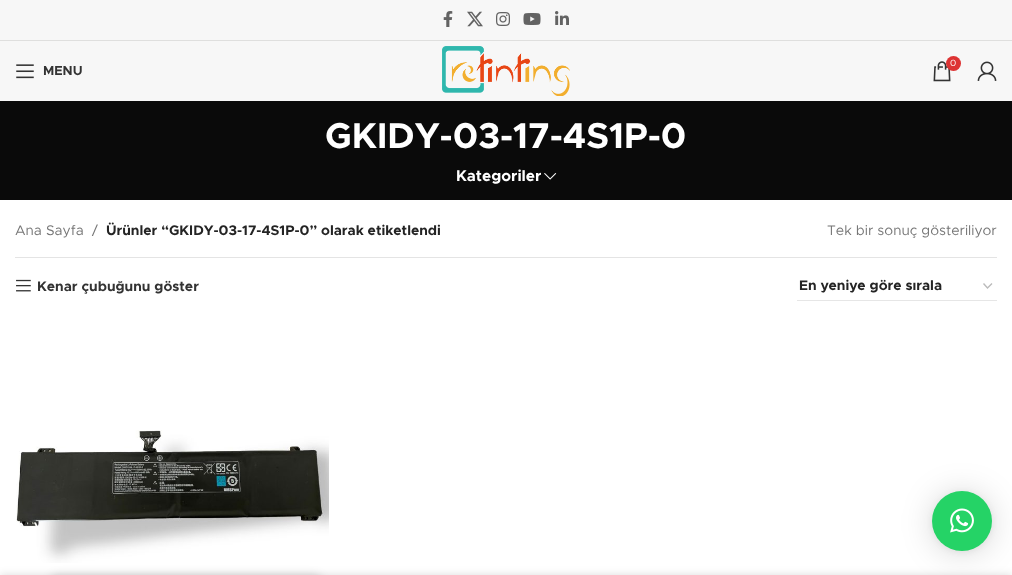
<!DOCTYPE html>
<meta charset="utf-8">
<style>body { margin: 0 } canvas { display: block }</style>
<canvas id="canvas" width="1012" height="575"></canvas>
<img id="img1" src="img_01.png" hidden>
<img id="img2" src="img_02.png" hidden>
<img id="img3" src="img_03.png" hidden>
<img id="img4" src="img_04.png" hidden>
<img id="img5" src="img_05.png" hidden>
<img id="img6" src="img_06.png" hidden>
<img id="img7" src="img_07.png" hidden>
<img id="img8" src="img_08.png" hidden>
<img id="img9" src="img_09.png" hidden>
<img id="img10" src="img_10.png" hidden>
<img id="img11" src="img_11.png" hidden>
<img id="img12" src="img_12.png" hidden>
<img id="img13" src="img_13.png" hidden>
<script>
window.onload = function () {
	const canvas = document.getElementById("canvas");
	const ctx = canvas.getContext("2d");
	ctx.miterLimit = 4;
	ctx.fontKerning = "normal";
	function txt(s, x, y) {
		ctx.fillText(s, x, y);
	}
	function fill(x, y, w, h) {
		ctx.fillRect(x, y, w, h);
	}
	function img(id, x, y, w, h) {
		ctx.drawImage(document.getElementById(id), x, y, w, h);
	}

	ctx.fillStyle = "#FFFFFF";
	fill(0, 0, 1012, 575);
	ctx.fillStyle = "#F7F7F7";
	fill(0, 0, 1012, 40);
	ctx.fillStyle = "#DFDFDE";
	fill(0, 40, 1012, 1);
	img("img1", 443, 11, 10, 16);
	img("img2", 467, 11, 16, 16);
	img("img3", 496, 12, 14, 14);
	img("img4", 523, 13, 18, 12);
	img("img5", 555, 11, 14, 14);
	ctx.fillStyle = "#F7F7F7";
	fill(0, 41, 1012, 60);
	img("img6", 442, 46, 128, 50);
	img("img7", 933, 61, 18, 21);
	ctx.fillStyle = "#DD3333";
	ctx.beginPath();
	ctx.arc(953.5, 63.5, 7.5, 0, Math.PI * 2);
	ctx.fill();
	img("img8", 977, 61, 20, 20);
	img("img9", 16, 64, 18, 15);
	ctx.fillStyle = "#0A0A0A";
	fill(0, 101, 1012, 99);
	img("img10", 544, 173, 13, 7);
	ctx.fillStyle = "#E4E4E4";
	fill(15, 257, 982, 1);
	img("img11", 16, 279, 15, 13);
	ctx.beginPath();
	ctx.moveTo(983.5, 283.5);
	ctx.lineTo(987.5, 288);
	ctx.lineTo(992, 283.5);
	ctx.strokeStyle = "#BBBBBB";
	ctx.lineWidth = 1.4;
	ctx.stroke();
	ctx.fillStyle = "#E6E6E6";
	fill(797, 300, 200, 1);
	img("img12", 16, 430, 313, 133);
	ctx.fillStyle = "rgba(0, 0, 0, 0.15)";
	ctx.filter = "blur(5px)";
	ctx.beginPath();
	ctx.roundRect(50, 575, 272, 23, 8);
	ctx.fill();
	ctx.filter = "none";
	ctx.fillStyle = "rgba(0, 0, 0, 0.16)";
	ctx.filter = "blur(16px)";
	ctx.beginPath();
	ctx.roundRect(932, 493, 60, 60, 30);
	ctx.fill();
	ctx.filter = "none";
	ctx.fillStyle = "rgba(0, 0, 0, 0.06)";
	ctx.filter = "blur(3px)";
	ctx.beginPath();
	ctx.roundRect(932, 492, 60, 60, 30);
	ctx.fill();
	ctx.filter = "none";
	ctx.fillStyle = "#25D366";
	ctx.beginPath();
	ctx.arc(962, 521, 30, 0, Math.PI * 2);
	ctx.fill();
	img("img13", 950, 508, 24, 25);
	ctx.fillStyle = "rgba(0, 0, 0, 0.14)";
	ctx.filter = "blur(4.5px)";
	ctx.beginPath();
	ctx.rect(0, 575, 1012, 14);
	ctx.fill();
	ctx.filter = "none";
	ctx.font = "9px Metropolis";
	ctx.fillStyle = "#FFFFFF";
	txt("0", 950, 66);
	ctx.font = "bold 13px Metropolis";
	ctx.fillStyle = "#333333";
	txt("MENU", 43, 75);
	ctx.font = "bold 36px Metropolis";
	ctx.fillStyle = "#FFFFFF";
	txt("GKIDY-03-17-4S1P-0", 325, 148);
	ctx.font = "bold 15.5px Metropolis";
	txt("Kategoriler", 456, 181);
	ctx.font = "14px Metropolis";
	ctx.fillStyle = "#767676";
	txt("Ana Sayfa", 15, 235);
	txt("/", 92, 235);
	ctx.font = "bold 14px Metropolis";
	ctx.fillStyle = "#242424";
	txt("Ürünler “GKIDY-03-17-4S1P-0” olarak etiketlendi", 106, 235);
	ctx.font = "14px Metropolis";
	ctx.fillStyle = "#767676";
	txt("Tek bir sonuç gösteriliyor", 827, 235);
	ctx.font = "bold 14px Metropolis";
	ctx.fillStyle = "#333333";
	txt("Kenar çubuğunu göster", 37, 291);
	ctx.fillStyle = "#242424";
	txt("En yeniye göre sırala", 799, 290);
};
</script>
